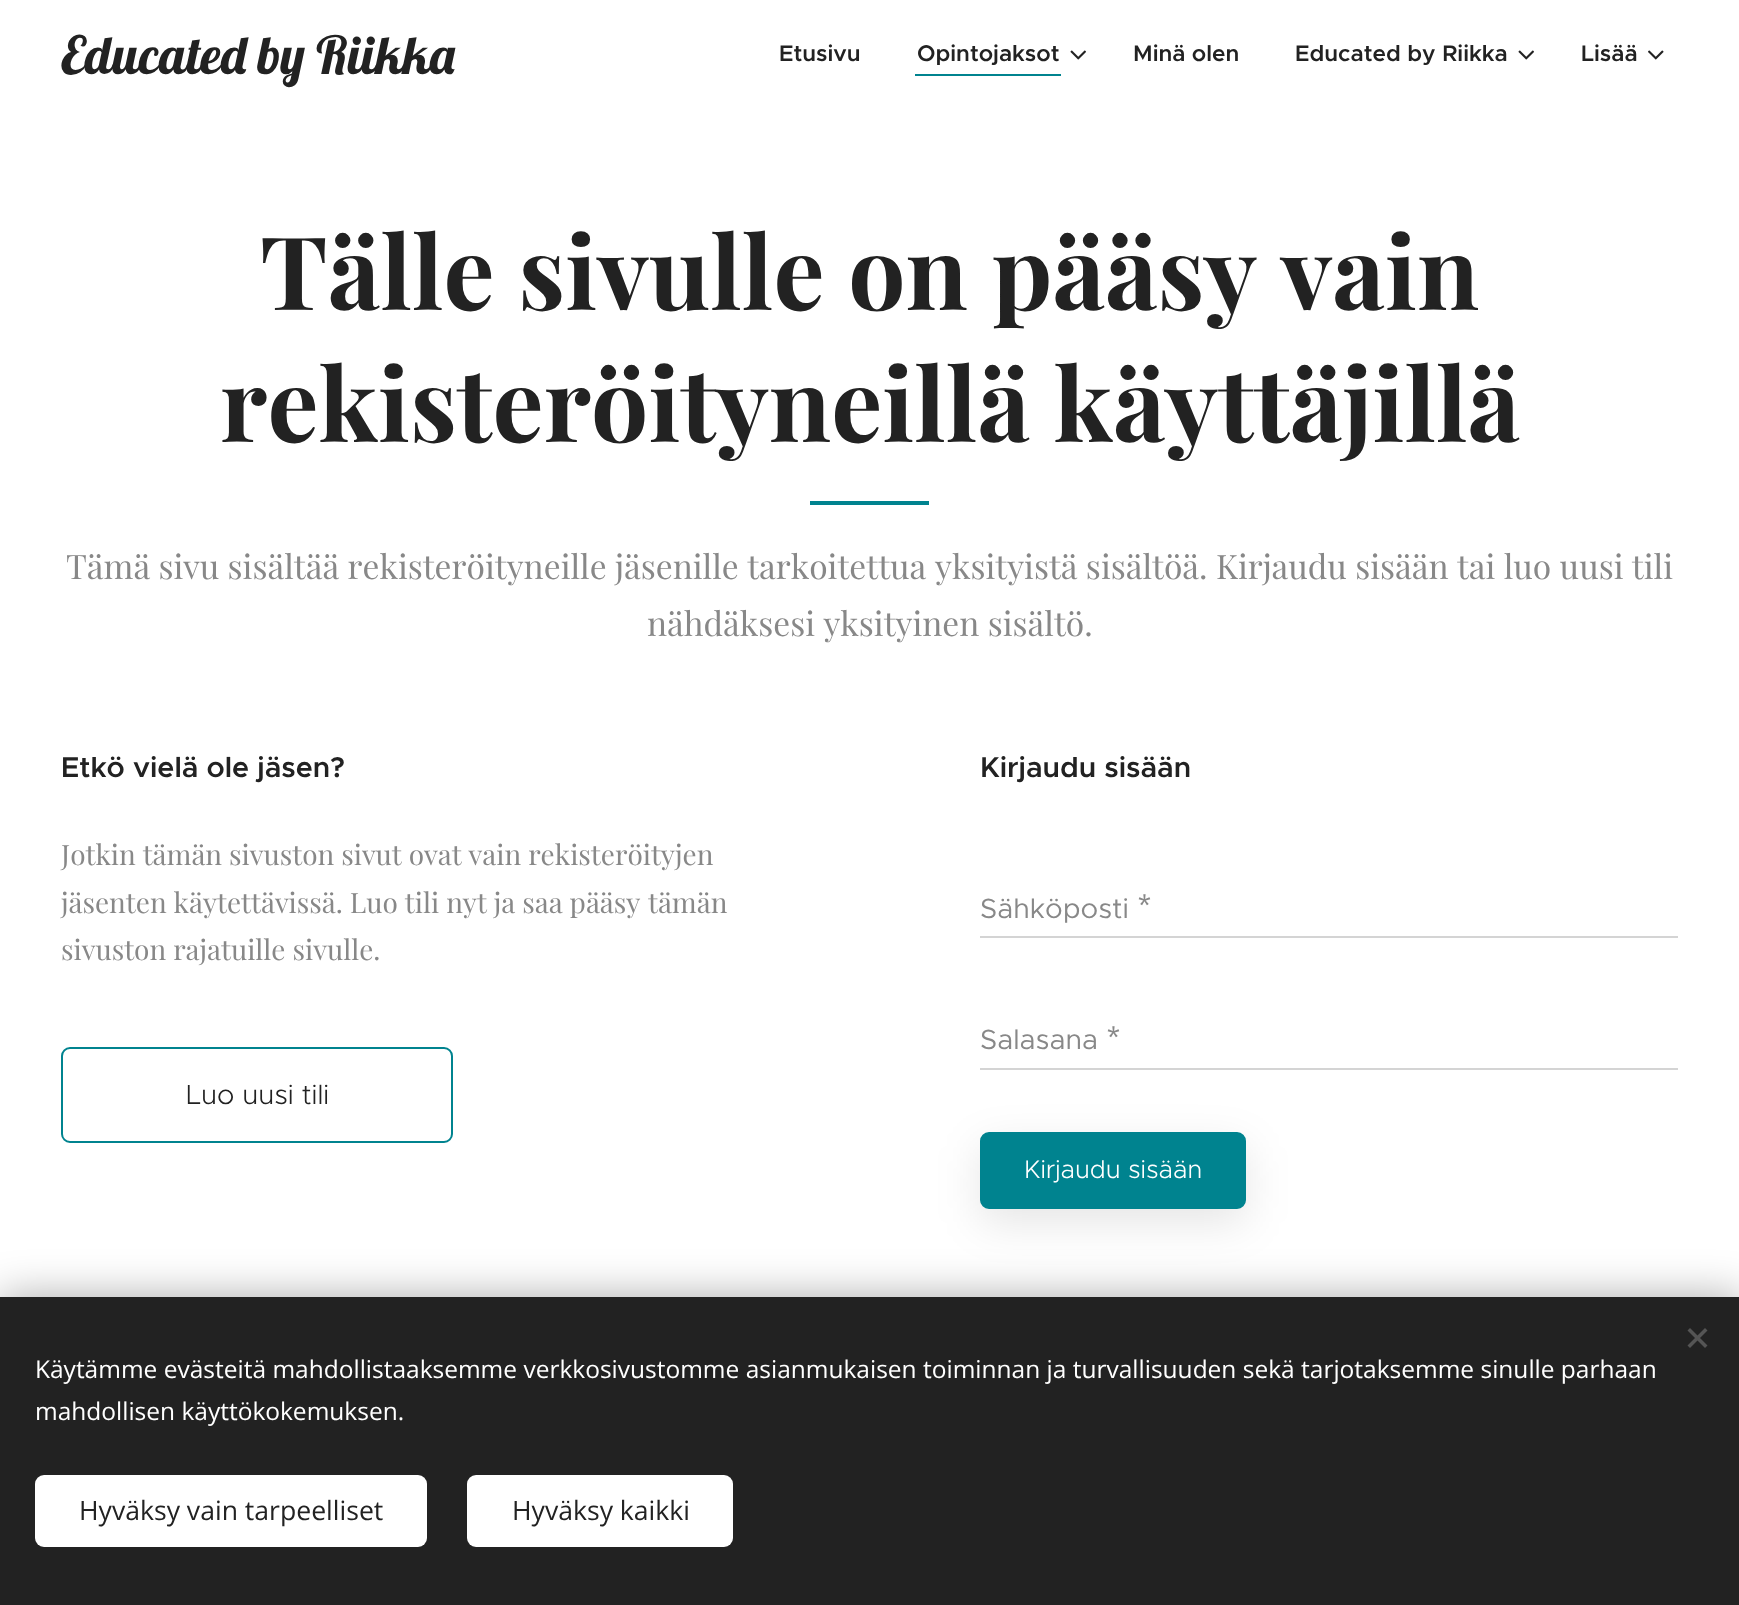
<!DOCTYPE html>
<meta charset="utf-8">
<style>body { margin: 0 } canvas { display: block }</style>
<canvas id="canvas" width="1739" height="1605"></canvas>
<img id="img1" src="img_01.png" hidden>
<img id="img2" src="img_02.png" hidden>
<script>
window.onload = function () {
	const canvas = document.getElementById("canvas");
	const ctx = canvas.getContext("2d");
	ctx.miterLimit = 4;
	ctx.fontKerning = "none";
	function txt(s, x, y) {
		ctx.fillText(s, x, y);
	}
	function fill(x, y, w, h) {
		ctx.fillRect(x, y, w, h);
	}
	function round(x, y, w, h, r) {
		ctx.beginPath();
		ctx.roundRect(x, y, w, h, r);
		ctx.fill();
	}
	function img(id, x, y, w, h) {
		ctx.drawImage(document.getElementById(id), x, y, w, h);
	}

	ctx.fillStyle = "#FFFFFF";
	fill(0, 0, 1739, 1605);
	ctx.fillStyle = "#00838F";
	fill(915, 74, 146, 2);
	img("img1", 1070, 50, 16, 10);
	img("img1", 1518, 50, 16, 10);
	img("img2", 1648, 50, 16, 10);
	fill(810, 501, 119, 4);
	ctx.beginPath();
	ctx.roundRect(62, 1048, 390, 94, 8);
	ctx.strokeStyle = "#00838F";
	ctx.lineWidth = 2;
	ctx.stroke();
	ctx.fillStyle = "#D4D4D4";
	fill(980, 936, 698, 2);
	fill(980, 1068, 698, 2);
	ctx.fillStyle = "rgba(0, 0, 0, 0.1)";
	ctx.filter = "blur(22px)";
	ctx.beginPath();
	ctx.roundRect(980, 1146, 266, 77, 9);
	ctx.fill();
	ctx.filter = "none";
	ctx.fillStyle = "#00838F";
	ctx.beginPath();
	ctx.roundRect(981, 1133, 264, 75, 8);
	ctx.fill();
	ctx.stroke();
	ctx.fillStyle = "rgba(0, 0, 0, 0.33)";
	ctx.filter = "blur(22px)";
	ctx.beginPath();
	ctx.rect(0, 1297, 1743, 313);
	ctx.fill();
	ctx.filter = "none";
	ctx.fillStyle = "#222222";
	fill(0, 1297, 1739, 308);
	ctx.fillStyle = "#555555";
	ctx.beginPath();
	ctx.moveTo(1687.5, 1345.5);
	ctx.lineTo(1705, 1328);
	ctx.lineTo(1707.5, 1330.5);
	ctx.lineTo(1690, 1348);
	ctx.closePath();
	ctx.fill();
	ctx.beginPath();
	ctx.moveTo(1690, 1328);
	ctx.lineTo(1707.5, 1345.5);
	ctx.lineTo(1705, 1348);
	ctx.lineTo(1687.5, 1330.5);
	ctx.closePath();
	ctx.fill();
	ctx.fillStyle = "#FFFFFF";
	round(35, 1475, 392, 72, 9);
	round(467, 1475, 266, 72, 9);
	ctx.font = "52.5px Lobster";
	ctx.fillStyle = "#222222";
	txt("Educated by Riikka", 61, 74);
	ctx.font = "600 22.75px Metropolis";
	txt("Etusivu", 779, 61);
	txt("Opintojaksot", 917, 61);
	txt("Minä olen", 1133, 61);
	txt("Educated by Riikka", 1295, 61);
	txt("Lisää", 1581, 61);
	ctx.font = "bold 101.5px Playfair Display";
	txt("Tälle sivulle on pääsy vain", 260, 310);
	txt("rekisteröityneillä käyttäjillä", 220, 442);
	ctx.font = "33.6px Playfair Display";
	ctx.fillStyle = "#888888";
	txt("Tämä sivu sisältää rekisteröityneille jäsenille tarkoitettua", 66, 579);
	txt("yksityistä sisältöä. Kirjaudu sisään tai luo uusi tili", 935, 579);
	txt("nähdäksesi yksityinen sisältö.", 647, 636);
	ctx.font = "600 28.75px Metropolis";
	ctx.fillStyle = "#222222";
	txt("Etkö vielä ole jäsen?", 61, 777);
	ctx.font = "28px Playfair Display";
	ctx.fillStyle = "#888888";
	txt("Jotkin tämän sivuston sivut ovat vain rekisteröityjen", 61, 865);
	txt("jäsenten käytettävissä. Luo tili nyt ja saa pääsy", 61, 913);
	txt("tämän", 648, 913);
	txt("sivuston rajatuille sivulle.", 61, 960);
	ctx.font = "300 27.5px Metropolis";
	ctx.fillStyle = "#222222";
	txt("Luo uusi tili", 186, 1104);
	ctx.font = "600 28.75px Metropolis";
	txt("Kirjaudu sisään", 980, 777);
	ctx.font = "28px Metropolis";
	ctx.fillStyle = "#888888";
	txt("Sähköposti", 980, 918);
	ctx.font = "24.5px Roboto Flex";
	txt("*", 1138, 912);
	ctx.font = "28px Metropolis";
	txt("Salasana", 980, 1049);
	ctx.font = "24.5px Roboto Flex";
	txt("*", 1107, 1044);
	ctx.font = "300 25.5px Metropolis";
	ctx.fillStyle = "#FFFFFF";
	txt("Kirjaudu sisään", 1024, 1178);
	ctx.font = "24.5px Open Sans";
	txt("Käytämme evästeitä mahdollistaaksemme verkkosivustomme asianmukaisen toiminnan ja turvallisuuden sekä tarjotaksemme sinulle parhaan", 35, 1378);
	txt("mahdollisen käyttökokemuksen.", 35, 1420);
	ctx.font = "26.6px Open Sans";
	ctx.fillStyle = "#222222";
	txt("Hyväksy vain tarpeelliset", 79, 1520);
	txt("Hyväksy kaikki", 512, 1520);
};
</script>
